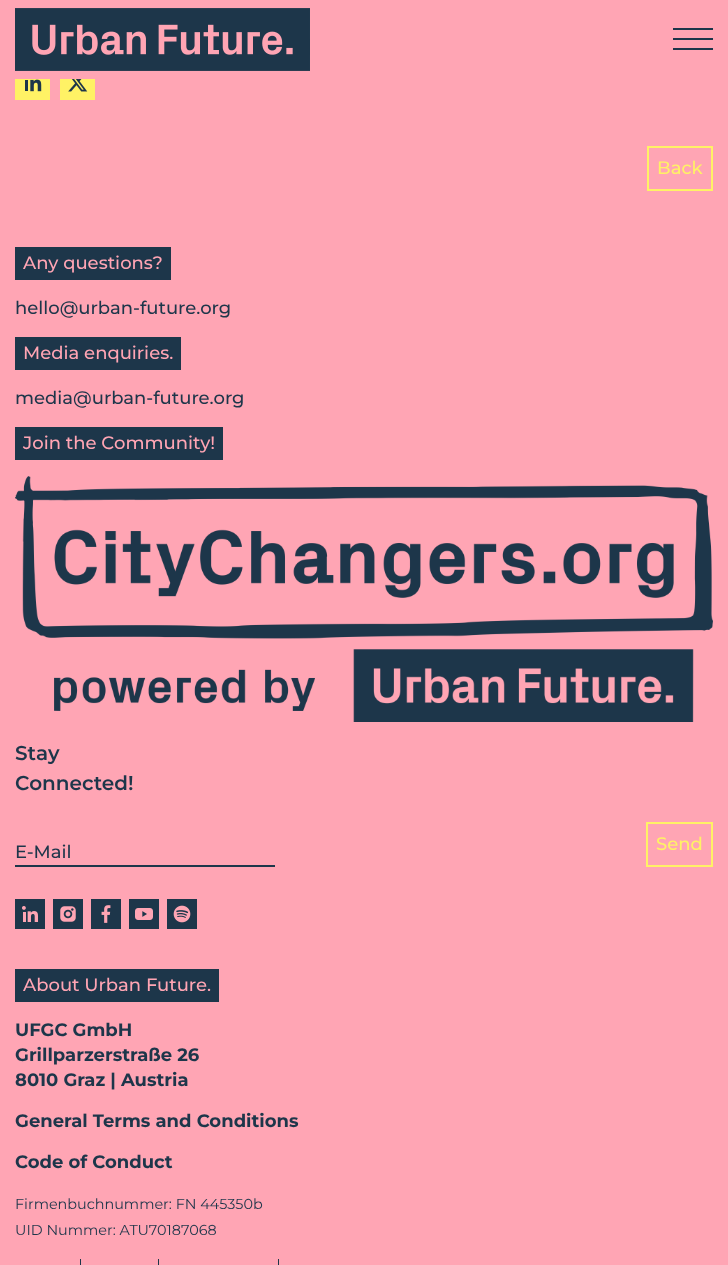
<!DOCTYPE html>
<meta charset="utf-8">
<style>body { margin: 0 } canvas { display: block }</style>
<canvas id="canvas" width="728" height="1265"></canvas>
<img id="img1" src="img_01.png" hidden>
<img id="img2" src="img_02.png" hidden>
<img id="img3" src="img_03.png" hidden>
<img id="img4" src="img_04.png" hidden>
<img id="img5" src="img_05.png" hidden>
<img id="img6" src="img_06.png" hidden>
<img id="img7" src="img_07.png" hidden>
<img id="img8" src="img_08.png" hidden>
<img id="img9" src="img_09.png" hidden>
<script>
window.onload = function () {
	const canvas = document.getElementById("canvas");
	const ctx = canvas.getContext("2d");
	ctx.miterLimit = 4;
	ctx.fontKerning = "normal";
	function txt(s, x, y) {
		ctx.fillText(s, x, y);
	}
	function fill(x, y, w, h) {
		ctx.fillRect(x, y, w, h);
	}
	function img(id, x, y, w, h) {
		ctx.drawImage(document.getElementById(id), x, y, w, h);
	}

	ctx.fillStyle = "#FFA5B4";
	fill(0, 0, 728, 1265);
	img("img1", 15, 8, 295, 63);
	ctx.fillStyle = "#1D364A";
	fill(673, 28, 40, 2);
	fill(673, 38, 40, 2);
	fill(673, 48, 40, 2);
	img("img2", 15, 79, 35, 21);
	img("img3", 60, 79, 35, 21);
	ctx.strokeStyle = "#FFF265";
	ctx.lineWidth = 2;
	ctx.strokeRect(648, 147, 64, 43);
	fill(15, 247, 156, 33);
	fill(15, 337, 166, 33);
	fill(15, 427, 208, 33);
	img("img4", 15, 476, 698, 246);
	fill(15, 865, 260, 2);
	ctx.strokeRect(647, 823, 65, 43);
	img("img5", 15, 899, 30, 30);
	img("img6", 53, 899, 30, 30);
	img("img7", 91, 899, 30, 30);
	img("img8", 129, 899, 30, 30);
	img("img9", 167, 899, 30, 30);
	fill(15, 969, 204, 33);
	fill(80, 1259, 1, 6);
	fill(158, 1259, 1, 6);
	fill(278, 1259, 1, 6);
	ctx.font = "500 18px Montserrat";
	ctx.fillStyle = "#FFF265";
	txt("Back", 657, 174);
	ctx.fillStyle = "#FFA5B4";
	txt("Any questions?", 23, 269);
	ctx.fillStyle = "#1D364A";
	txt("hello@urban-future.org", 15, 314);
	ctx.fillStyle = "#FFA5B4";
	txt("Media enquiries.", 23, 359);
	ctx.fillStyle = "#1D364A";
	txt("media@urban-future.org", 15, 404);
	ctx.fillStyle = "#FFA5B4";
	txt("Join the Community!", 23, 449);
	ctx.font = "600 20px Montserrat";
	ctx.fillStyle = "#1D364A";
	txt("Stay", 15, 760);
	txt("Connected!", 15, 790);
	ctx.font = "500 18px Montserrat";
	txt("E-Mail", 15, 858);
	ctx.fillStyle = "#FFF265";
	txt("Send", 656, 850);
	ctx.fillStyle = "#FFA5B4";
	txt("About Urban Future.", 23, 991);
	ctx.font = "100 18px Montserrat";
	ctx.fillStyle = "#1D364A";
	txt("UFGC GmbH", 15, 1036);
	txt("Grillparzerstraße 26", 15, 1061);
	txt("8010 Graz | Austria", 15, 1086);
	txt("General Terms and Conditions", 15, 1127);
	txt("Code of Conduct", 15, 1168);
	ctx.font = "100 14.4px 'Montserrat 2'";
	txt("Firmenbuchnummer: FN 445350b", 15, 1209);
	txt("UID Nummer: ATU70187068", 15, 1235);
};
</script>
